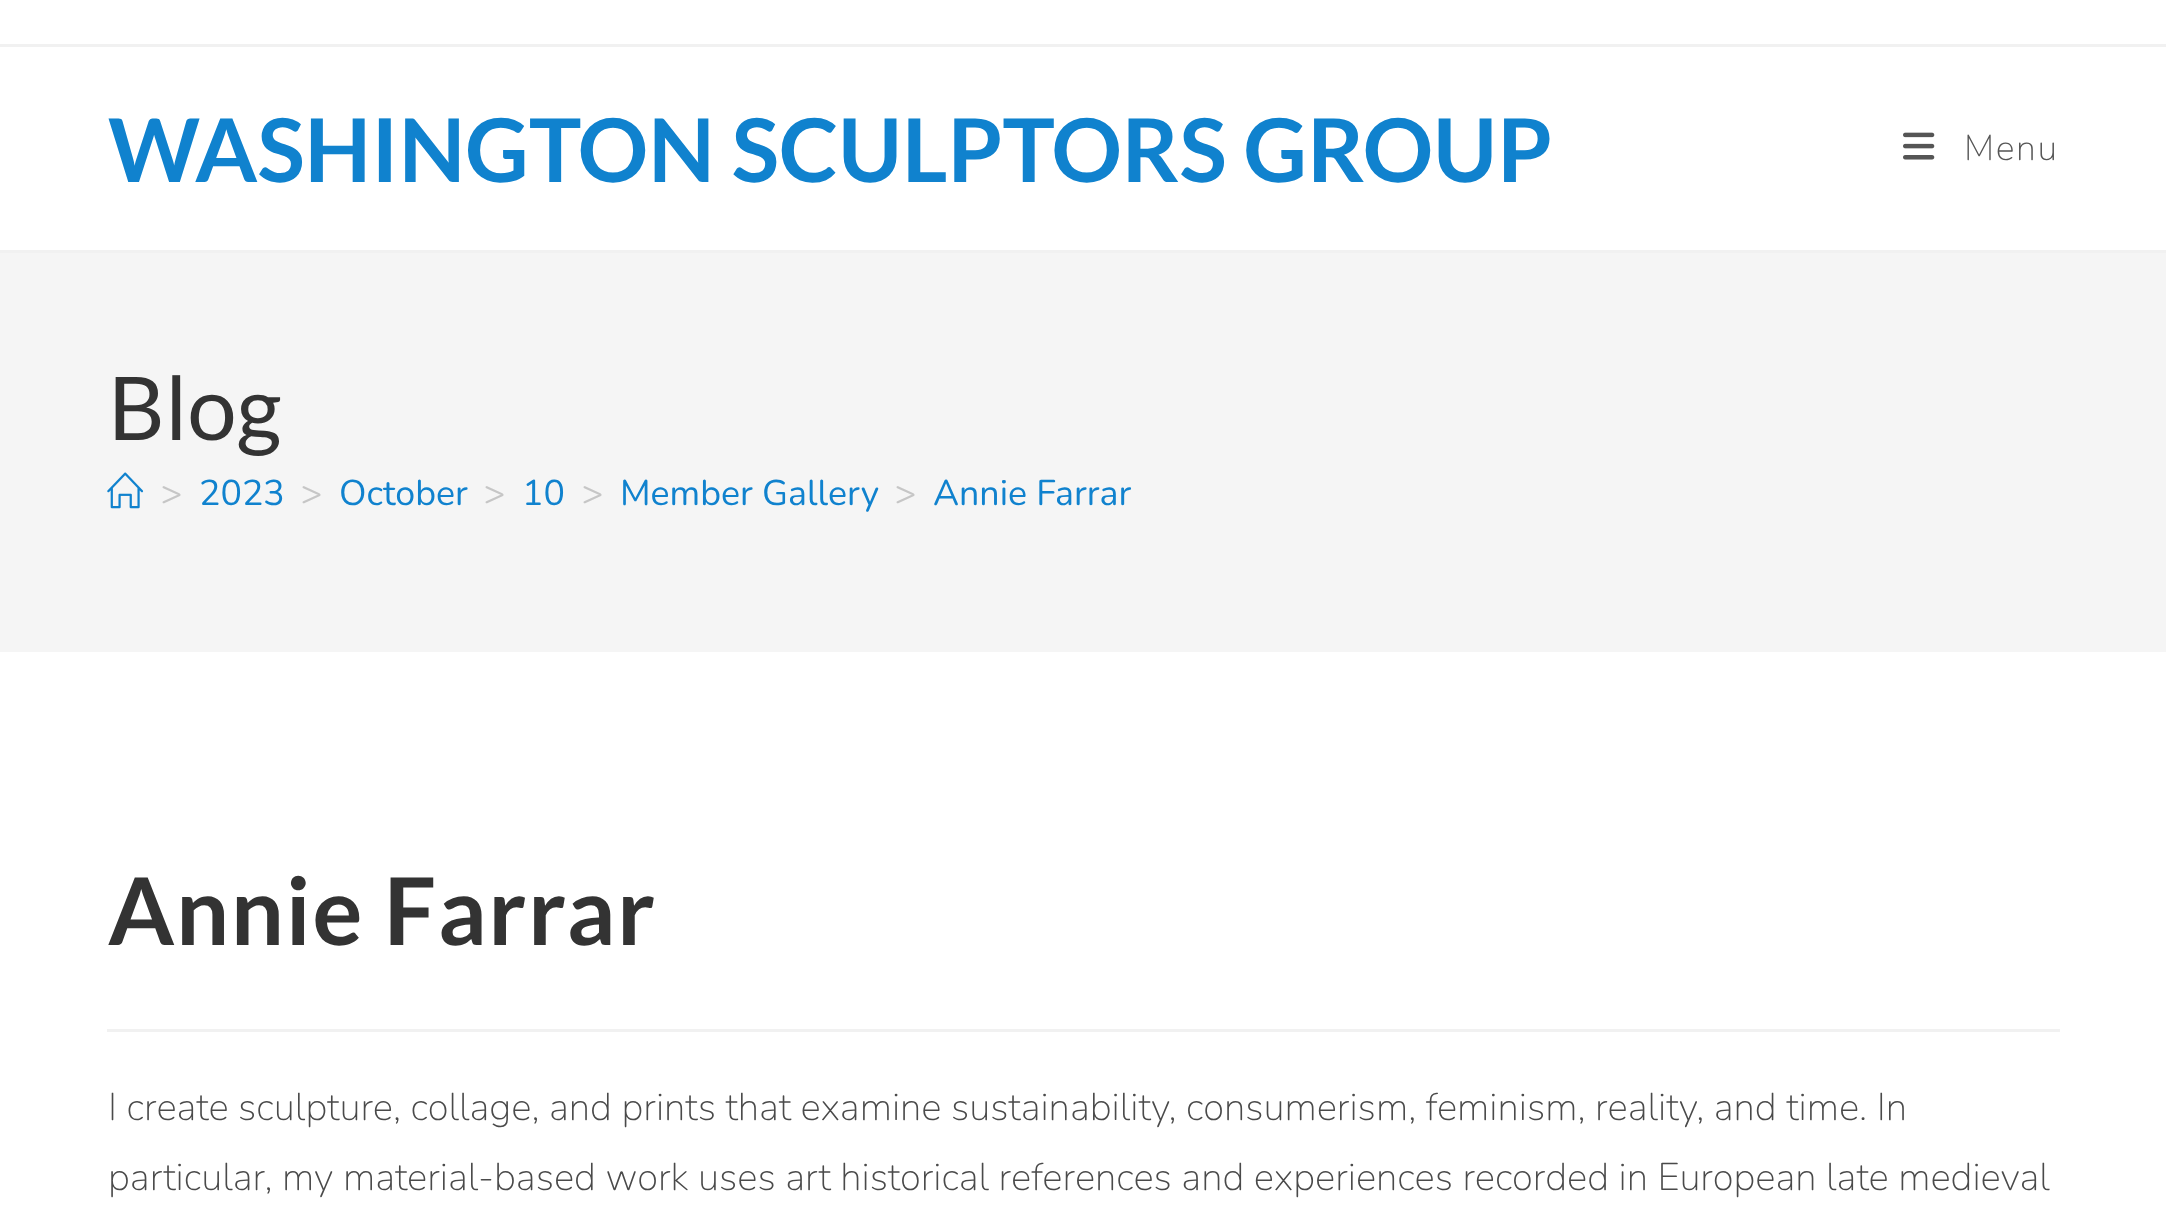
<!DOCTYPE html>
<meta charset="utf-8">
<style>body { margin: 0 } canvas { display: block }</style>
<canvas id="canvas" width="2166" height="1212"></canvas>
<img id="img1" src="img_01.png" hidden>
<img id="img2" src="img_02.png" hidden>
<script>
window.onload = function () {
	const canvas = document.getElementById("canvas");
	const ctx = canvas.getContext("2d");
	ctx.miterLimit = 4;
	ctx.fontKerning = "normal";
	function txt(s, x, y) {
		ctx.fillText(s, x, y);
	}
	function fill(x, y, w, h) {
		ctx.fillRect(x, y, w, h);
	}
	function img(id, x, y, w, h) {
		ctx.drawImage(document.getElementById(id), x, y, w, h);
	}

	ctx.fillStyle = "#FFFFFF";
	fill(0, 0, 2166, 1212);
	ctx.fillStyle = "#F1F1F1";
	fill(0, 44, 2166, 3);
	fill(0, 250, 2166, 3);
	img("img1", 1903, 132, 32, 28);
	ctx.fillStyle = "#F5F5F5";
	fill(0, 253, 2166, 399);
	img("img2", 107, 472, 37, 37);
	ctx.fillStyle = "#F1F1F1";
	fill(107, 1029, 1953, 3);
	ctx.font = "bold 88px Lato";
	ctx.fillStyle = "#1082CE";
	txt("WASHINGTON SCULPTORS GROUP", 108, 182);
	ctx.letterSpacing = "1.6px";
	ctx.font = "200 35.75px Nunito";
	ctx.fillStyle = "#555555";
	txt("Menu", 1964, 160);
	ctx.letterSpacing = "0px";
	ctx.font = "88px Lato";
	ctx.fillStyle = "#333333";
	txt("Blog", 108, 440);
	ctx.font = "35.75px Nunito";
	ctx.fillStyle = "#C6C6C6";
	txt(">", 161, 505);
	ctx.fillStyle = "#1082CE";
	txt("2023", 199, 505);
	ctx.fillStyle = "#C6C6C6";
	txt(">", 301, 505);
	ctx.fillStyle = "#1082CE";
	txt("October", 339, 505);
	ctx.fillStyle = "#C6C6C6";
	txt(">", 484, 505);
	ctx.fillStyle = "#1082CE";
	txt("10", 522, 505);
	ctx.fillStyle = "#C6C6C6";
	txt(">", 582, 505);
	ctx.fillStyle = "#1082CE";
	txt("Member Gallery", 620, 505);
	ctx.fillStyle = "#C6C6C6";
	txt(">", 895, 505);
	ctx.fillStyle = "#1082CE";
	txt("Annie Farrar", 933, 505);
	ctx.letterSpacing = "1.6px";
	ctx.font = "bold 93.5px Lato";
	ctx.fillStyle = "#333333";
	txt("Annie Farrar", 108, 945);
	ctx.letterSpacing = "0px";
	ctx.font = "200 38.5px Nunito";
	ctx.fillStyle = "#4A4A4A";
	txt("I create sculpture, collage, and prints that examine sustainability, consumerism, feminism, reality, and time. In", 108, 1120);
	txt("particular, my material-based work uses art historical references and experiences recorded in European late medieval", 108, 1190);
};
</script>
